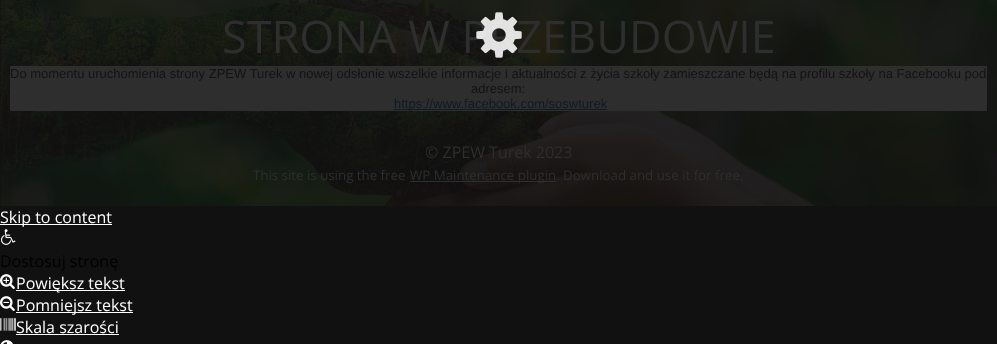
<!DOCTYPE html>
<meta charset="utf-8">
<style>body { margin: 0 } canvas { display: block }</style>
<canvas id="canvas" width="997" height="344"></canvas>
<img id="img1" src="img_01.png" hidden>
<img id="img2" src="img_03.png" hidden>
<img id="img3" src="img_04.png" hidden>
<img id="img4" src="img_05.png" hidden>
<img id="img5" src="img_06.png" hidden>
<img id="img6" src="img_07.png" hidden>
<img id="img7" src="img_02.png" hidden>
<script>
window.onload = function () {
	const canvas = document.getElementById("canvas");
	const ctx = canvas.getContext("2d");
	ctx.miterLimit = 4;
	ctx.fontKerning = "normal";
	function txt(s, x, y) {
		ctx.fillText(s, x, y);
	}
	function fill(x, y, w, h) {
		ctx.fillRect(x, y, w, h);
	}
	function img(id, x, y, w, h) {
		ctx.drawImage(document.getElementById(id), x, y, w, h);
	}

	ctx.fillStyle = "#111111";
	fill(0, 0, 997, 344);
	img("img1", 0, 0, 997, 206);
	ctx.fillStyle = "#2E2E2E";
	fill(10, 66, 977, 45);
	ctx.fillStyle = "#111927";
	fill(394, 109, 213, 1);
	ctx.fillStyle = "#2E2E2E";
	fill(410, 181, 146, 1);
	ctx.fillStyle = "#FFFFFF";
	fill(0, 224, 112, 1);
	img("img2", 1, 229, 15, 16);
	img("img3", 0, 274, 15, 15);
	fill(16, 290, 109, 1);
	img("img4", 0, 296, 15, 15);
	fill(16, 312, 117, 1);
	img("img5", 0, 318, 16, 13);
	fill(16, 334, 103, 1);
	img("img6", 0, 340, 13, 4);
	ctx.font = "45px Open Sans";
	ctx.fillStyle = "#2E2E2E";
	txt("STRONA W PRZEBUDOWIE", 222, 53);
	img("img7", 476, 12, 46, 46);
	ctx.font = "13px Liberation Sans";
	ctx.fillStyle = "#131313";
	txt("Do momentu uruchomienia strony ZPEW Turek w nowej odsłonie wszelkie informacje i aktualności z życia szkoły zamieszczane będą na profilu szkoły na Facebooku pod", 10, 78);
	txt("adresem:", 471, 93);
	ctx.fillStyle = "#111927";
	txt("https://www.facebook.com/soswturek", 394, 108);
	ctx.font = "16px Open Sans";
	ctx.fillStyle = "#2E2E2E";
	txt("© ZPEW Turek 2023", 425, 158);
	ctx.font = "13.3px Open Sans";
	txt("This site is using the free", 253, 180);
	txt("WP Maintenance plugin. Download and use it for free.", 410, 180);
	ctx.font = "16px Open Sans";
	ctx.fillStyle = "#FFFFFF";
	txt("Skip to content", 0, 223);
	ctx.fillStyle = "#000000";
	txt("Dostosuj stronę", 0, 267);
	ctx.fillStyle = "#FFFFFF";
	txt("Powiększ tekst", 16, 289);
	txt("Pomniejsz tekst", 16, 311);
	txt("Skala szarości", 16, 333);
};
</script>
